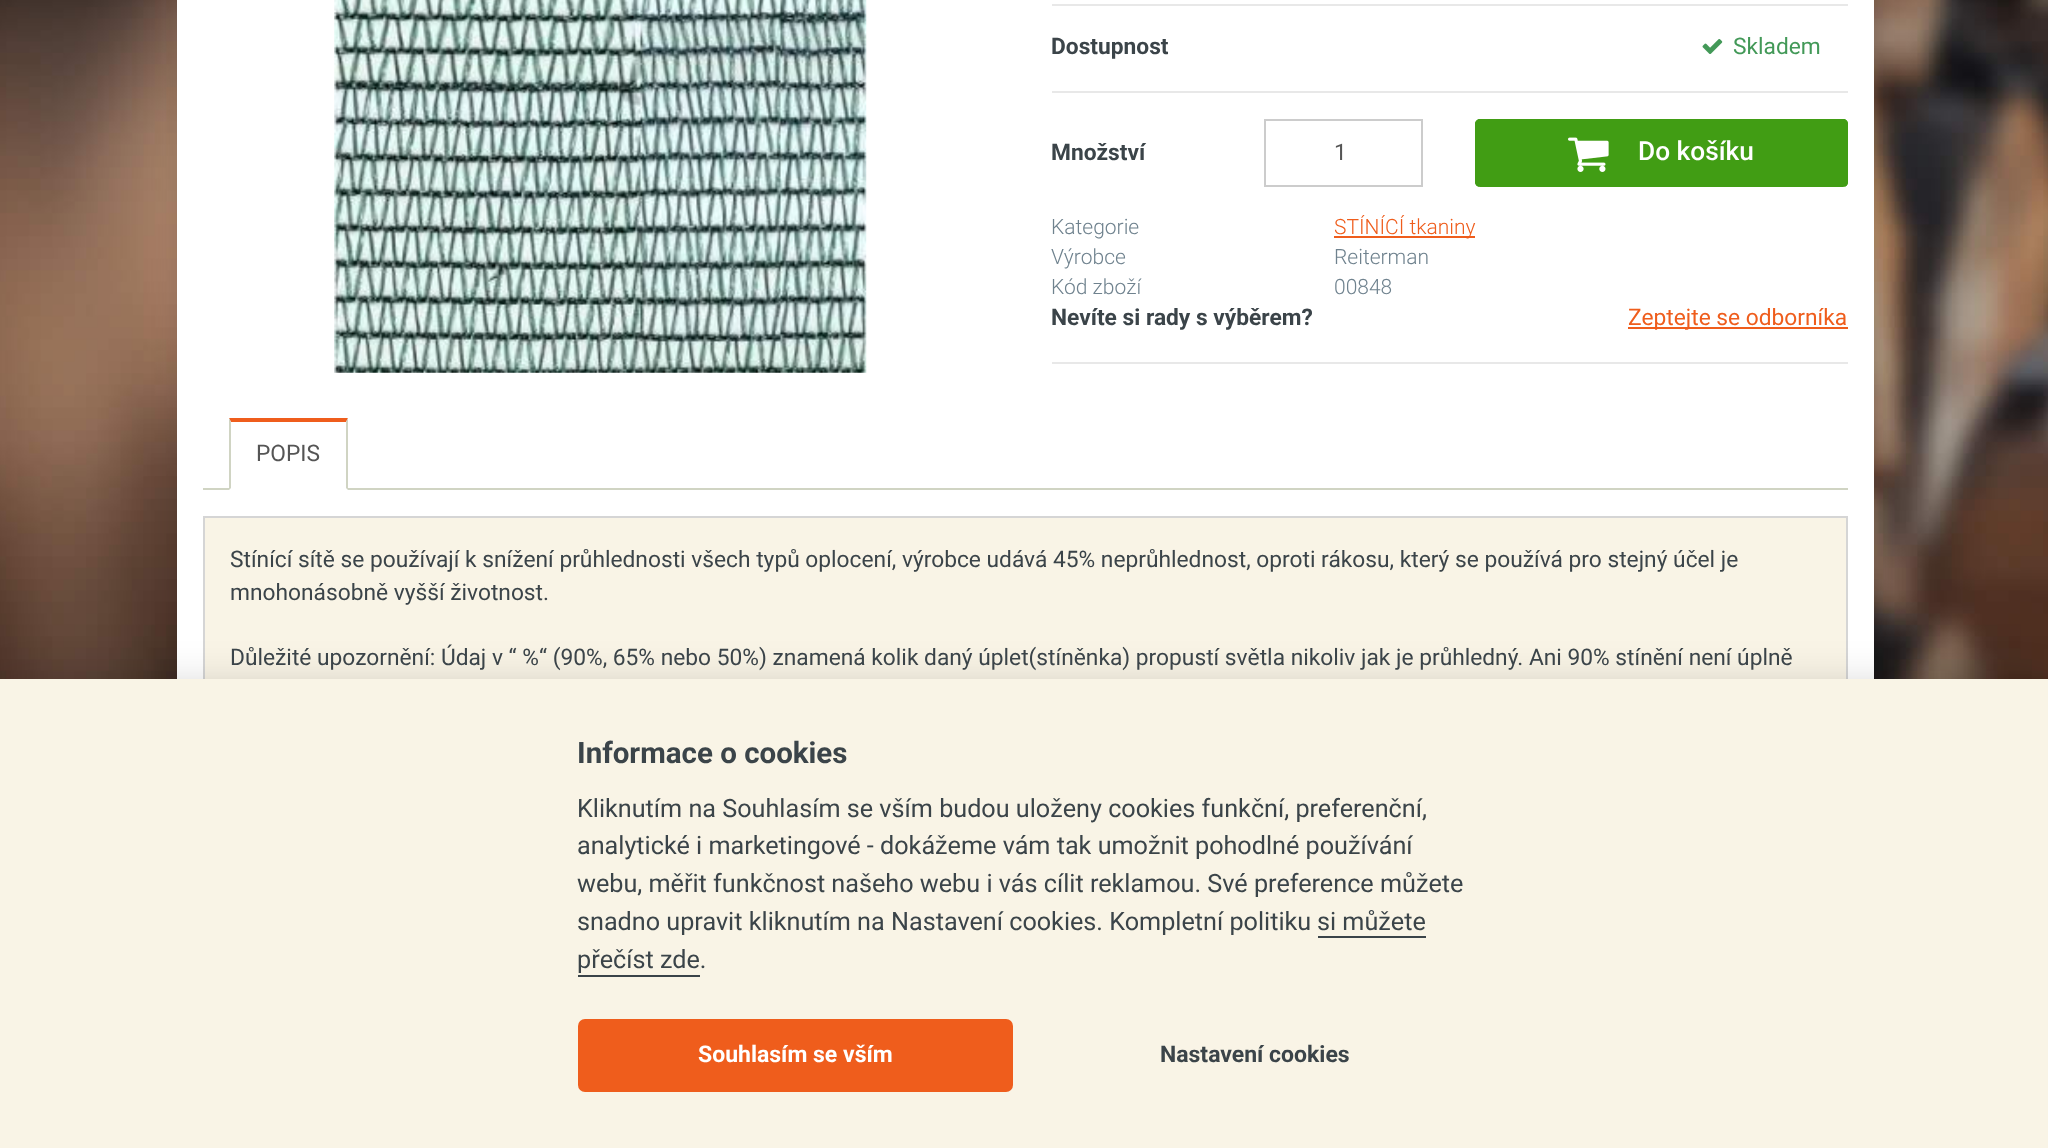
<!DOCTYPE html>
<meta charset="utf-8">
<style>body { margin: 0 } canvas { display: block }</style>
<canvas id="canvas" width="2048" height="1148"></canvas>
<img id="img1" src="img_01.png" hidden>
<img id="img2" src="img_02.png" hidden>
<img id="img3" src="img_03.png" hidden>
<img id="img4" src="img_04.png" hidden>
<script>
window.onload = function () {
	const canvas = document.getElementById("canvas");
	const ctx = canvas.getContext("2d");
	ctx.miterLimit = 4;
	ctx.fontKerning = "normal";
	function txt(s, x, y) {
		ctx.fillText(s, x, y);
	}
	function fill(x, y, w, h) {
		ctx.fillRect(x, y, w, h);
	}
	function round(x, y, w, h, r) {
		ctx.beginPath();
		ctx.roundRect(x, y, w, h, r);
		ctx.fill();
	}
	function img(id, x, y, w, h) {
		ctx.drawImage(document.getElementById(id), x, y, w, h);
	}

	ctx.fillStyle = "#FFFFFF";
	fill(0, 0, 2048, 1148);
	img("img1", 0, 0, 2048, 679);
	ctx.fillStyle = "rgba(0, 0, 0, 0.15)";
	ctx.filter = "blur(13px)";
	ctx.beginPath();
	ctx.roundRect(177, -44, 1697, 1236, 5);
	ctx.fill();
	ctx.filter = "none";
	ctx.fillStyle = "#FFFFFF";
	fill(177, 0, 1697, 679);
	img("img2", 334, 0, 533, 373);
	ctx.fillStyle = "#E8E8E8";
	fill(1052, 4, 796, 2);
	img("img3", 1702, 39, 21, 15);
	fill(1052, 91, 796, 2);
	ctx.strokeStyle = "#CCCCCC";
	ctx.lineWidth = 2;
	ctx.strokeRect(1265, 120, 157, 66);
	ctx.fillStyle = "#419D14";
	round(1475, 119, 373, 68, 5);
	ctx.beginPath();
	ctx.moveTo(1480, 119);
	ctx.lineTo(1843, 119);
	ctx.bezierCurveTo(1846, 119, 1848, 121, 1848, 124);
	ctx.lineTo(1848, 182);
	ctx.bezierCurveTo(1848, 185, 1846, 187, 1843, 187);
	ctx.lineTo(1480, 187);
	ctx.bezierCurveTo(1478, 187, 1475, 185, 1475, 182);
	ctx.lineTo(1475, 124);
	ctx.bezierCurveTo(1475, 121, 1478, 119, 1480, 119);
	ctx.closePath();
	ctx.moveTo(1480, 121);
	ctx.lineTo(1843, 121);
	ctx.bezierCurveTo(1845, 121, 1846, 122, 1846, 124);
	ctx.lineTo(1846, 182);
	ctx.bezierCurveTo(1846, 185, 1845, 187, 1843, 187);
	ctx.lineTo(1480, 187);
	ctx.bezierCurveTo(1479, 187, 1477, 185, 1477, 182);
	ctx.lineTo(1477, 124);
	ctx.bezierCurveTo(1477, 122, 1479, 121, 1480, 121);
	ctx.closePath();
	ctx.fill("evenodd");
	img("img4", 1568, 137, 41, 35);
	ctx.fillStyle = "#EF5D1C";
	fill(1334, 236, 141, 2);
	fill(1628, 327, 220, 2);
	ctx.fillStyle = "#E8E8E8";
	fill(1052, 362, 796, 2);
	ctx.fillStyle = "#D0D4C3";
	fill(203, 488, 1645, 2);
	ctx.fillStyle = "#FFFFFF";
	fill(229, 488, 119, 2);
	ctx.fillStyle = "#EF5D1C";
	ctx.beginPath();
	ctx.moveTo(229, 418);
	ctx.lineTo(348, 418);
	ctx.lineTo(346, 422);
	ctx.lineTo(231, 422);
	ctx.closePath();
	ctx.fill();
	ctx.fillStyle = "#D0D4C3";
	ctx.beginPath();
	ctx.moveTo(348, 418);
	ctx.lineTo(348, 490);
	ctx.lineTo(346, 488);
	ctx.lineTo(346, 422);
	ctx.closePath();
	ctx.fill();
	ctx.beginPath();
	ctx.moveTo(229, 490);
	ctx.lineTo(229, 418);
	ctx.lineTo(231, 422);
	ctx.lineTo(231, 488);
	ctx.closePath();
	ctx.fill();
	ctx.fillStyle = "#F9F4E6";
	fill(205, 518, 1641, 161);
	ctx.strokeStyle = "#D5D5D5";
	ctx.strokeRect(204, 517, 1643, 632);
	ctx.fillStyle = "rgba(2, 2, 3, 0.28)";
	ctx.filter = "blur(26px)";
	ctx.beginPath();
	ctx.rect(0, 697, 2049, 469);
	ctx.fill();
	ctx.filter = "none";
	ctx.fillStyle = "#F9F4E6";
	fill(0, 679, 2048, 469);
	ctx.fillStyle = "#3B4449";
	fill(1318, 936, 108, 2);
	fill(578, 975, 122, 2);
	ctx.fillStyle = "#EF5D1C";
	round(578, 1019, 435, 73, 7);
	ctx.font = "bold 22.75px Roboto";
	ctx.fillStyle = "#3B4449";
	txt("Dostupnost", 1051, 54);
	ctx.font = "22.75px Roboto";
	ctx.fillStyle = "#439958";
	txt("Skladem", 1733, 54);
	ctx.font = "bold 22.75px Roboto";
	ctx.fillStyle = "#3B4449";
	txt("Množství", 1051, 160);
	ctx.font = "22.75px Roboto";
	ctx.fillStyle = "#555555";
	txt("1", 1334, 160);
	ctx.font = "500 26.25px Roboto";
	ctx.fillStyle = "#FFFFFF";
	txt("Do košíku", 1638, 160);
	ctx.font = "300 21px Roboto";
	ctx.fillStyle = "#6F828E";
	txt("Kategorie", 1051, 234);
	ctx.fillStyle = "#EF5D1C";
	txt("STÍNÍCÍ tkaniny", 1334, 234);
	ctx.fillStyle = "#6F828E";
	txt("Výrobce", 1051, 264);
	txt("Reiterman", 1334, 264);
	txt("Kód zboží", 1051, 294);
	txt("00848", 1334, 294);
	ctx.font = "bold 22.75px Roboto";
	ctx.fillStyle = "#3B4449";
	txt("Nevíte si rady s výběrem?", 1051, 325);
	ctx.font = "22.75px Roboto";
	ctx.fillStyle = "#EF5D1C";
	txt("Zeptejte se odborníka", 1628, 325);
	ctx.fillStyle = "#555555";
	txt("POPIS", 256, 461);
	ctx.fillStyle = "#3B4449";
	txt("Stínící sítě se používají k snížení průhlednosti všech typů oplocení, výrobce udává 45% neprůhlednost, oproti rákosu, který se používá pro stejný účel je", 230, 567);
	txt("mnohonásobně vyšší životnost.", 230, 600);
	txt("Důležité upozornění: Údaj v “ %“ (90%, 65% nebo 50%) znamená kolik daný úplet(stíněnka) propustí světla nikoliv jak je průhledný. Ani 90% stínění není úplně", 230, 665);
	ctx.font = "bold 29.5px Roboto";
	txt("Informace o cookies", 577, 763);
	ctx.font = "25.2px Roboto";
	txt("Kliknutím na Souhlasím se vším budou uloženy cookies funkční, preferenční,", 577, 817);
	txt("analytické i marketingové - dokážeme vám tak umožnit pohodlné používání", 577, 854);
	txt("webu, měřit funkčnost našeho webu i vás cílit reklamou. Své preference můžete", 577, 892);
	txt("snadno upravit kliknutím na Nastavení cookies. Kompletní politiku", 577, 930);
	txt("si můžete", 1317, 930);
	txt("přečíst zde.", 577, 968);
	ctx.font = "bold 23px Roboto";
	ctx.fillStyle = "#FFFFFF";
	txt("Souhlasím se vším", 698, 1062);
	ctx.fillStyle = "#3B4449";
	txt("Nastavení cookies", 1160, 1062);
};
</script>
